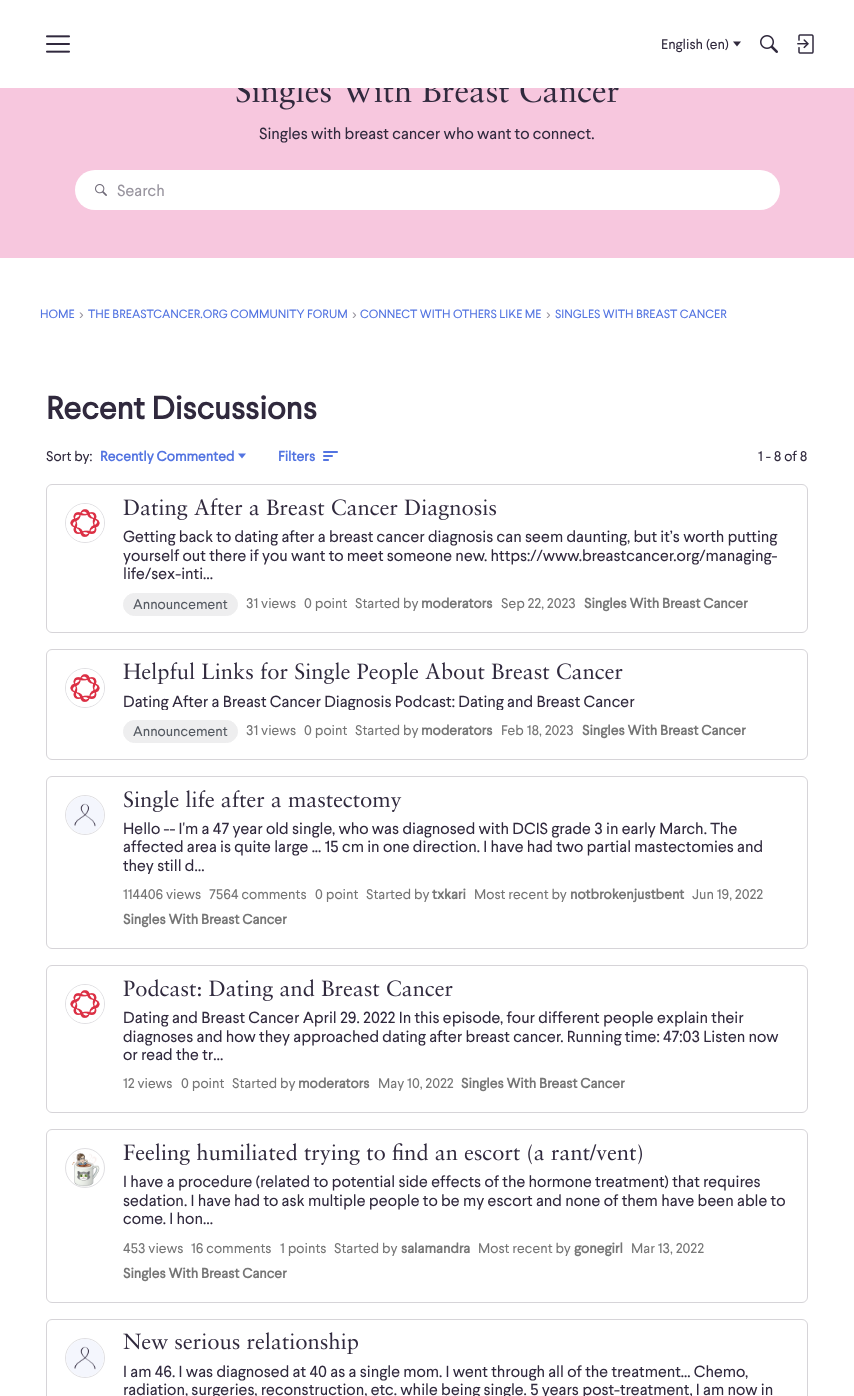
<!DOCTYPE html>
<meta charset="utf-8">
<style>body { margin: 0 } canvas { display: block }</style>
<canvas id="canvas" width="854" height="1396"></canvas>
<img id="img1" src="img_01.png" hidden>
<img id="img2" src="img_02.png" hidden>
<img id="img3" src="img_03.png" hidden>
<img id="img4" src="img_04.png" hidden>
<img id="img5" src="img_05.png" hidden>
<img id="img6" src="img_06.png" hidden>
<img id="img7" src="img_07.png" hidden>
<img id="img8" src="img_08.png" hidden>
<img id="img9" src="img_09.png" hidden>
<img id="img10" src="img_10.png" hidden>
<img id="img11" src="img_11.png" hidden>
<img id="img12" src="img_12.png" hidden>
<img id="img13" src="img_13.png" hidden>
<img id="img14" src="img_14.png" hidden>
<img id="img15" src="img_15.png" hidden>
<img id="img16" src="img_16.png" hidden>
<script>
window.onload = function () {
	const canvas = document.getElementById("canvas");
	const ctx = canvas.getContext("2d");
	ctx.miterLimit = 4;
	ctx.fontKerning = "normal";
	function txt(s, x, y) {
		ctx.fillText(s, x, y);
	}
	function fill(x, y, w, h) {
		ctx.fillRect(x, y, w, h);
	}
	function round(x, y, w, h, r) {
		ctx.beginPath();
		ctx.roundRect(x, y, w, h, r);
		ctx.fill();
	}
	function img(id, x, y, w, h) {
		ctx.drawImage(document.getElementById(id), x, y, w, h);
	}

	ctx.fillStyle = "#FFFFFF";
	fill(0, 0, 854, 1396);
	img("img1", 46, 35, 24, 18);
	ctx.fillStyle = "#30293D";
	ctx.beginPath();
	ctx.moveTo(733, 41.5);
	ctx.lineTo(741, 41.5);
	ctx.lineTo(737, 46.5);
	ctx.closePath();
	ctx.fill();
	img("img2", 760, 35, 18, 18);
	img("img3", 797, 34, 17, 20);
	ctx.fillStyle = "#F7C7DE";
	fill(0, 88, 854, 170);
	img("img4", 236, 88, 383, 22);
	ctx.fillStyle = "#FFFFFF";
	round(75, 170, 705, 40, 20);
	img("img5", 95, 184, 12, 12);
	ctx.fillStyle = "#5374E1";
	ctx.beginPath();
	ctx.moveTo(238, 453.5);
	ctx.lineTo(246, 453.5);
	ctx.lineTo(242, 458.5);
	ctx.closePath();
	ctx.fill();
	img("img6", 323, 451, 15, 10);
	ctx.beginPath();
	ctx.roundRect(46.5, 484.5, 761, 148, 5.5);
	ctx.strokeStyle = "#D6D4D8";
	ctx.stroke();
	ctx.beginPath();
	ctx.arc(85, 523, 19.5, 0, Math.PI * 2);
	ctx.strokeStyle = "#E0DFE2";
	ctx.stroke();
	img("img7", 66, 504, 38, 38);
	img("img8", 123, 498, 374, 22);
	ctx.fillStyle = "#EEEEEF";
	ctx.beginPath();
	ctx.roundRect(123.5, 593.5, 114, 22, 11);
	ctx.fill();
	ctx.strokeStyle = "#EEEEEF";
	ctx.stroke();
	ctx.beginPath();
	ctx.roundRect(46.5, 649.5, 761, 110, 5.5);
	ctx.strokeStyle = "#D6D4D8";
	ctx.stroke();
	ctx.beginPath();
	ctx.arc(85, 688, 19.5, 0, Math.PI * 2);
	ctx.strokeStyle = "#E0DFE2";
	ctx.stroke();
	img("img9", 66, 669, 38, 38);
	img("img10", 123, 662, 500, 22);
	ctx.beginPath();
	ctx.roundRect(123.5, 720.5, 114, 22, 11);
	ctx.fill();
	ctx.strokeStyle = "#EEEEEF";
	ctx.stroke();
	ctx.beginPath();
	ctx.roundRect(46.5, 776.5, 761, 172, 5.5);
	ctx.strokeStyle = "#D6D4D8";
	ctx.stroke();
	ctx.beginPath();
	ctx.arc(85, 815, 19.5, 0, Math.PI * 2);
	ctx.strokeStyle = "#E0DFE2";
	ctx.stroke();
	img("img11", 66, 796, 38, 38);
	img("img12", 124, 790, 278, 22);
	ctx.beginPath();
	ctx.roundRect(46.5, 965.5, 761, 147, 5.5);
	ctx.strokeStyle = "#D6D4D8";
	ctx.stroke();
	ctx.beginPath();
	ctx.arc(85, 1004, 19.5, 0, Math.PI * 2);
	ctx.strokeStyle = "#E0DFE2";
	ctx.stroke();
	img("img9", 66, 985, 38, 38);
	img("img13", 123, 979, 330, 22);
	ctx.beginPath();
	ctx.roundRect(46.5, 1129.5, 761, 173, 5.5);
	ctx.strokeStyle = "#D6D4D8";
	ctx.stroke();
	ctx.beginPath();
	ctx.arc(85, 1168, 19.5, 0, Math.PI * 2);
	ctx.strokeStyle = "#E0DFE2";
	ctx.stroke();
	img("img14", 72, 1151, 28, 36);
	img("img15", 123, 1143, 519, 22);
	ctx.beginPath();
	ctx.roundRect(46.5, 1319.5, 761, 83, 5.5);
	ctx.strokeStyle = "#D6D4D8";
	ctx.stroke();
	ctx.beginPath();
	ctx.arc(85, 1358, 19.5, 0, Math.PI * 2);
	ctx.strokeStyle = "#E0DFE2";
	ctx.stroke();
	img("img11", 66, 1339, 38, 38);
	img("img16", 123, 1332, 235, 22);
	ctx.font = "14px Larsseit";
	ctx.fillStyle = "#30293D";
	txt("English (en)", 661, 49);
	ctx.font = "16px Larsseit";
	txt("Singles with breast cancer who want to connect.", 259, 139);
	ctx.fillStyle = "#98949E";
	txt("Search", 117, 196);
	ctx.font = "12px Larsseit";
	ctx.fillStyle = "#5374E1";
	txt("HOME", 40, 318);
	ctx.font = "14px Liberation Sans";
	ctx.fillStyle = "#98949E";
	txt("›", 79, 319);
	ctx.font = "12px Larsseit";
	ctx.fillStyle = "#5374E1";
	txt("THE BREASTCANCER.ORG COMMUNITY FORUM", 88, 318);
	ctx.font = "14px Liberation Sans";
	ctx.fillStyle = "#98949E";
	txt("›", 352, 319);
	ctx.font = "12px Larsseit";
	ctx.fillStyle = "#5374E1";
	txt("CONNECT WITH OTHERS LIKE ME", 360, 318);
	ctx.font = "14px Liberation Sans";
	ctx.fillStyle = "#98949E";
	txt("›", 546, 319);
	ctx.font = "12px Larsseit";
	ctx.fillStyle = "#5374E1";
	txt("SINGLES WITH BREAST CANCER", 555, 318);
	ctx.font = "bold 32px Larsseit";
	ctx.fillStyle = "#30293D";
	txt("Recent Discussions", 46, 419);
	ctx.font = "14px Larsseit";
	txt("Sort by:", 46, 461);
	ctx.font = "bold 14px Larsseit";
	ctx.fillStyle = "#5374E1";
	txt("Recently Commented", 100, 461);
	txt("Filters", 278, 461);
	ctx.font = "14px Larsseit";
	ctx.fillStyle = "#30293D";
	txt("1 - 8 of 8", 758, 461);
	ctx.font = "16px Larsseit";
	txt("Getting back to dating after a breast cancer diagnosis can seem daunting, but it’s worth putting", 123, 542);
	txt("yourself out there if you want to meet someone new. https://www.breastcancer.org/managing-", 123, 561);
	txt("life/sex-inti…", 123, 579);
	ctx.font = "14px Larsseit";
	ctx.fillStyle = "#555A62";
	txt("Announcement", 133, 609);
	ctx.fillStyle = "#767676";
	txt("31 views", 246, 608);
	txt("0 point", 304, 608);
	txt("Started by", 355, 608);
	ctx.font = "bold 14px Larsseit";
	txt("moderators", 421, 608);
	ctx.font = "14px Larsseit";
	txt("Sep 22, 2023", 501, 608);
	ctx.font = "bold 14px Larsseit";
	txt("Singles With Breast Cancer", 584, 608);
	ctx.save();
	ctx.beginPath();
	ctx.rect(123, 692, 668, 18);
	ctx.clip();
	ctx.font = "16px Larsseit";
	ctx.fillStyle = "#30293D";
	txt("Dating After a Breast Cancer Diagnosis Podcast: Dating and Breast Cancer", 123, 707);
	ctx.restore();
	ctx.font = "14px Larsseit";
	ctx.fillStyle = "#555A62";
	txt("Announcement", 133, 736);
	ctx.fillStyle = "#767676";
	txt("31 views", 246, 735);
	txt("0 point", 304, 735);
	txt("Started by", 355, 735);
	ctx.font = "bold 14px Larsseit";
	txt("moderators", 421, 735);
	ctx.font = "14px Larsseit";
	txt("Feb 18, 2023", 501, 735);
	ctx.font = "bold 14px Larsseit";
	txt("Singles With Breast Cancer", 582, 735);
	ctx.font = "16px Larsseit";
	ctx.fillStyle = "#30293D";
	txt("Hello -- I'm a 47 year old single, who was diagnosed with DCIS grade 3 in early March. The", 123, 834);
	txt("affected area is quite large ... 15 cm in one direction. I have had two partial mastectomies and", 123, 852);
	ctx.save();
	ctx.beginPath();
	ctx.rect(123, 819, 668, 55);
	ctx.clip();
	txt("they still d…", 123, 871);
	ctx.restore();
	ctx.font = "14px Larsseit";
	ctx.fillStyle = "#767676";
	txt("114406 views", 123, 899);
	txt("7564 comments", 209, 899);
	txt("0 point", 315, 899);
	txt("Started by", 366, 899);
	ctx.font = "bold 14px Larsseit";
	txt("txkari", 432, 899);
	ctx.font = "14px Larsseit";
	txt("Most recent by", 474, 899);
	ctx.font = "bold 14px Larsseit";
	txt("notbrokenjustbent", 570, 899);
	ctx.font = "14px Larsseit";
	txt("Jun 19, 2022", 692, 899);
	ctx.font = "bold 14px Larsseit";
	txt("Singles With Breast Cancer", 123, 924);
	ctx.font = "16px Larsseit";
	ctx.fillStyle = "#30293D";
	txt("Dating and Breast Cancer April 29. 2022 In this episode, four different people explain their", 123, 1023);
	txt("diagnoses and how they approached dating after breast cancer. Running time: 47:03 Listen now", 123, 1042);
	txt("or read the tr…", 123, 1060);
	ctx.font = "14px Larsseit";
	ctx.fillStyle = "#767676";
	txt("12 views", 123, 1088);
	txt("0 point", 181, 1088);
	txt("Started by", 232, 1088);
	ctx.font = "bold 14px Larsseit";
	txt("moderators", 298, 1088);
	ctx.font = "14px Larsseit";
	txt("May 10, 2022", 378, 1088);
	ctx.font = "bold 14px Larsseit";
	txt("Singles With Breast Cancer", 461, 1088);
	ctx.font = "16px Larsseit";
	ctx.fillStyle = "#30293D";
	txt("I have a procedure (related to potential side effects of the hormone treatment) that requires", 123, 1187);
	txt("sedation. I have had to ask multiple people to be my escort and none of them have been able to", 123, 1206);
	txt("come. I hon…", 123, 1224);
	ctx.font = "14px Larsseit";
	ctx.fillStyle = "#767676";
	txt("453 views", 123, 1253);
	txt("16 comments", 191, 1253);
	txt("1 points", 280, 1253);
	txt("Started by", 334, 1253);
	ctx.font = "bold 14px Larsseit";
	txt("salamandra", 401, 1253);
	ctx.font = "14px Larsseit";
	txt("Most recent by", 478, 1253);
	ctx.font = "bold 14px Larsseit";
	txt("gonegirl", 574, 1253);
	ctx.font = "14px Larsseit";
	txt("Mar 13, 2022", 631, 1253);
	ctx.font = "bold 14px Larsseit";
	txt("Singles With Breast Cancer", 123, 1278);
	ctx.font = "16px Larsseit";
	ctx.fillStyle = "#30293D";
	txt("I am 46. I was diagnosed at 40 as a single mom. I went through all of the treatment... Chemo,", 123, 1377);
	txt("radiation, surgeries, reconstruction, etc. while being single. 5 years post-treatment, I am now in", 123, 1395);
};
</script>
